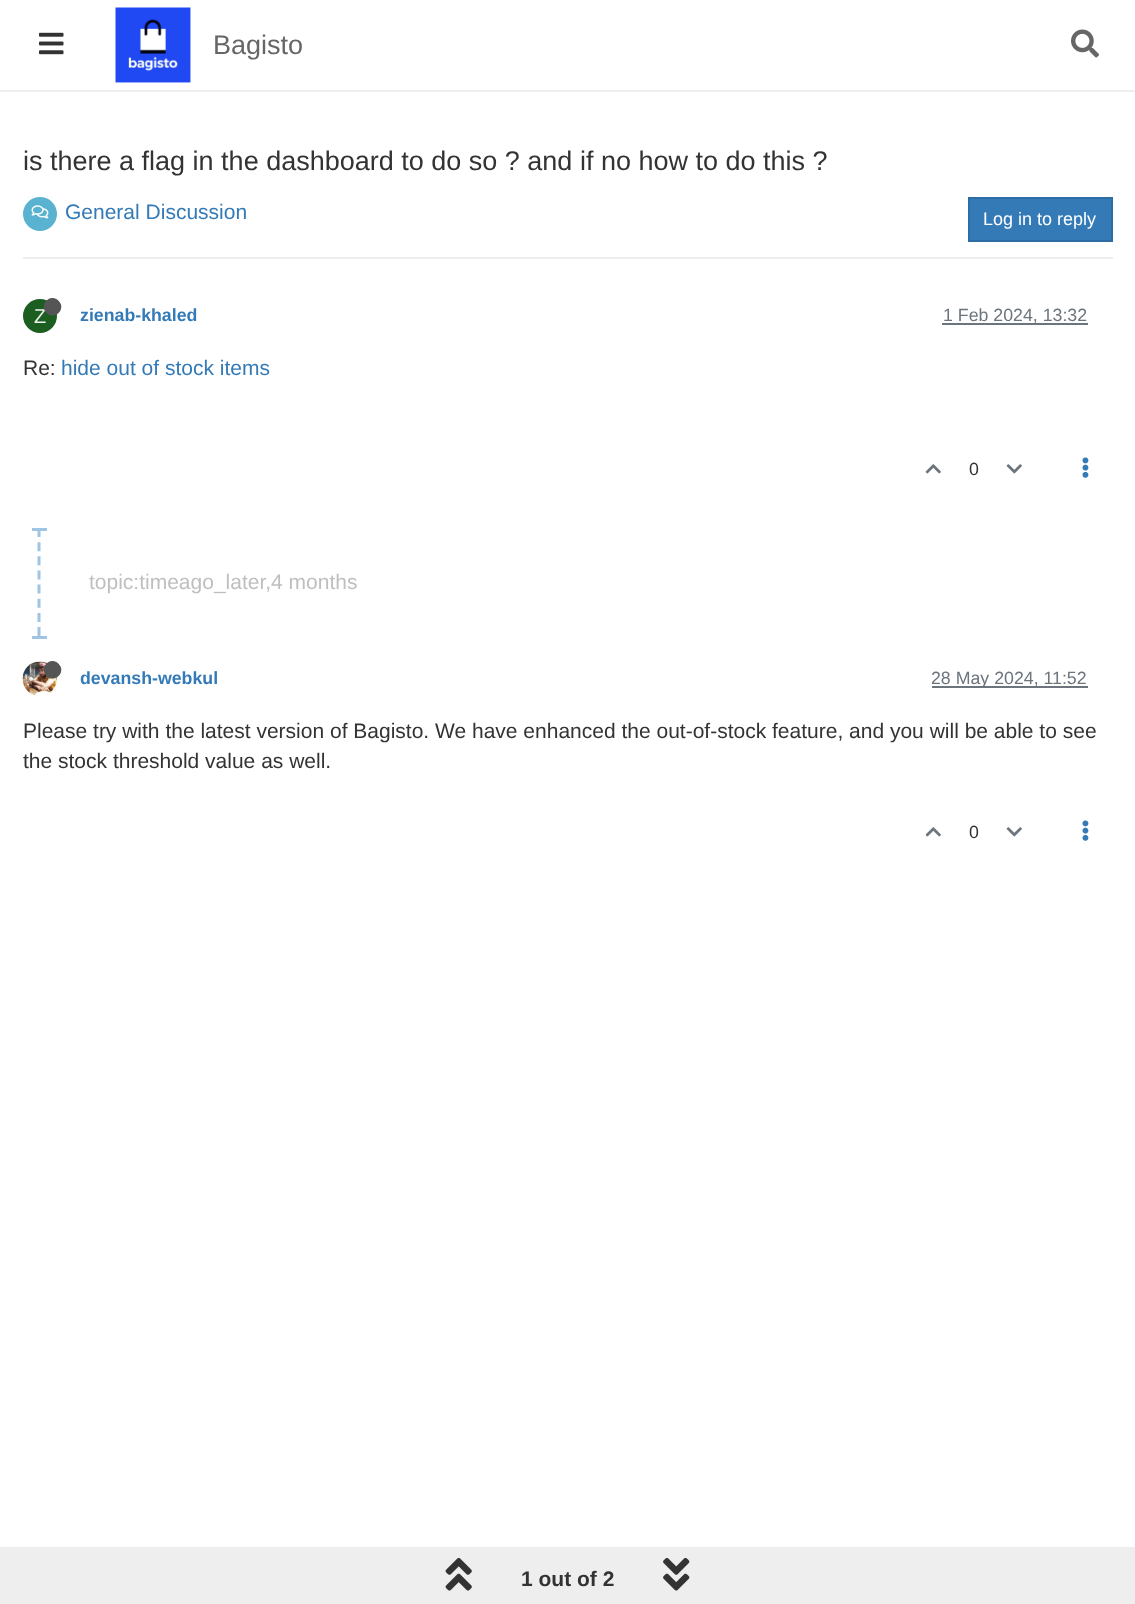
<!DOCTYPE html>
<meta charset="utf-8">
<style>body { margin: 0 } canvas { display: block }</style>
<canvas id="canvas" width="1135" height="1604"></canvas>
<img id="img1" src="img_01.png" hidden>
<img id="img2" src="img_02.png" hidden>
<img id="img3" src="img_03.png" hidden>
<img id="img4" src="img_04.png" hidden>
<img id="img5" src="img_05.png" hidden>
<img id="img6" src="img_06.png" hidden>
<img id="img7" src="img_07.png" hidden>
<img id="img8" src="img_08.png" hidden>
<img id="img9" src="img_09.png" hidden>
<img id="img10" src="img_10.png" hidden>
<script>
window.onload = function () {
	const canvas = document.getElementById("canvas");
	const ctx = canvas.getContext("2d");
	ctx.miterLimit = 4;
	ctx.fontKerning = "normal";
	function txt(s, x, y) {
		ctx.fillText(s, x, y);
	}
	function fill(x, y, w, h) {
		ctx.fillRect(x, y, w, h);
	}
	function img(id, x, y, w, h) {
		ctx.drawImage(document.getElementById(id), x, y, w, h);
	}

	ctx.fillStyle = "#FFFFFF";
	fill(0, 0, 1135, 1604);
	ctx.fillStyle = "#EEEEEE";
	fill(0, 90, 1135, 2);
	img("img1", 39, 32, 25, 23);
	img("img2", 115, 7, 76, 76);
	img("img3", 1071, 29, 28, 29);
	fill(23, 257, 1090, 2);
	ctx.fillStyle = "#59B3D0";
	ctx.beginPath();
	ctx.arc(40, 214, 17, 0, Math.PI * 2);
	ctx.fill();
	img("img4", 31, 205, 18, 14);
	ctx.fillStyle = "#337AB7";
	ctx.beginPath();
	ctx.rect(969, 198, 143, 43);
	ctx.fill();
	ctx.strokeStyle = "#2E6DA4";
	ctx.lineWidth = 2;
	ctx.stroke();
	ctx.fillStyle = "#1B5E20";
	ctx.beginPath();
	ctx.arc(40, 316, 17, 0, Math.PI * 2);
	ctx.fill();
	ctx.fillStyle = "#6C757D";
	fill(942, 323, 146, 2);
	img("img5", 925, 464, 16, 10);
	img("img6", 1006, 464, 16, 10);
	img("img7", 1082, 457, 7, 21);
	ctx.beginPath();
	ctx.moveTo(39, 528);
	ctx.lineTo(39, 636);
	ctx.strokeStyle = "#A0C4E4";
	ctx.lineWidth = 3;
	ctx.setLineDash([9, 5.15]);
	ctx.stroke();
	ctx.fillStyle = "#A0C4E4";
	fill(32, 528, 15, 3);
	fill(32, 636, 15, 3);
	img("img8", 22, 661, 35, 35);
	ctx.fillStyle = "#555555";
	ctx.beginPath();
	ctx.moveTo(46.5, 663.5);
	ctx.bezierCurveTo(54.5, 655.5, 67, 668, 58.5, 676);
	ctx.bezierCurveTo(50.5, 684, 38, 671.5, 46.5, 663.5);
	ctx.closePath();
	ctx.fill();
	ctx.fillStyle = "#6C757D";
	fill(932, 686, 156, 2);
	img("img5", 925, 827, 16, 10);
	img("img6", 1006, 827, 16, 10);
	img("img7", 1082, 820, 7, 21);
	ctx.fillStyle = "#EEEEEE";
	fill(0, 1547, 1135, 57);
	img("img9", 445, 1557, 27, 34);
	img("img10", 663, 1557, 27, 34);
	ctx.font = "27px Liberation Sans";
	ctx.fillStyle = "#666666";
	txt("Bagisto", 213, 54);
	ctx.fillStyle = "#333333";
	txt("is there a flag in the dashboard to do so ? and if no how to do this ?", 23, 170);
	ctx.font = "21px Liberation Sans";
	ctx.fillStyle = "#337AB7";
	txt("General Discussion", 65, 219);
	ctx.font = "18px Liberation Sans";
	ctx.fillStyle = "#FFFFFF";
	txt("Log in to reply", 983, 225);
	ctx.font = "20px Liberation Sans";
	ctx.fillStyle = "#EEEEEE";
	txt("Z", 34, 323);
	ctx.fillStyle = "#555555";
	ctx.beginPath();
	ctx.moveTo(46.5, 300.5);
	ctx.bezierCurveTo(54.5, 292.5, 67, 305, 58.5, 313);
	ctx.bezierCurveTo(50.5, 321, 38, 308.5, 46.5, 300.5);
	ctx.closePath();
	ctx.fill();
	ctx.font = "bold 17.75px Liberation Sans";
	ctx.fillStyle = "#337AB7";
	txt("zienab-khaled", 80, 321);
	ctx.font = "17.75px Liberation Sans";
	ctx.fillStyle = "#6C757D";
	txt("1 Feb 2024, 13:32", 943, 321);
	ctx.font = "21px Liberation Sans";
	ctx.fillStyle = "#333333";
	txt("Re:", 23, 375);
	ctx.fillStyle = "#337AB7";
	txt("hide out of stock items", 61, 375);
	ctx.font = "17.75px Liberation Sans";
	ctx.fillStyle = "#333333";
	txt("0", 969, 475);
	ctx.font = "21px Liberation Sans";
	ctx.fillStyle = "#BFBFBF";
	txt("topic:timeago_later,4 months", 89, 589);
	ctx.font = "bold 17.75px Liberation Sans";
	ctx.fillStyle = "#337AB7";
	txt("devansh-webkul", 80, 684);
	ctx.font = "17.75px Liberation Sans";
	ctx.fillStyle = "#6C757D";
	txt("28 May 2024, 11:52", 931, 684);
	ctx.font = "21px Liberation Sans";
	ctx.fillStyle = "#333333";
	txt("Please try with the latest version of Bagisto. We have enhanced the out-of-stock feature, and you will be able to see", 23, 738);
	txt("the stock threshold value as well.", 23, 768);
	ctx.font = "17.75px Liberation Sans";
	txt("0", 969, 838);
	ctx.font = "bold 21px Liberation Sans";
	txt("1 out of 2", 521, 1586);
};
</script>
